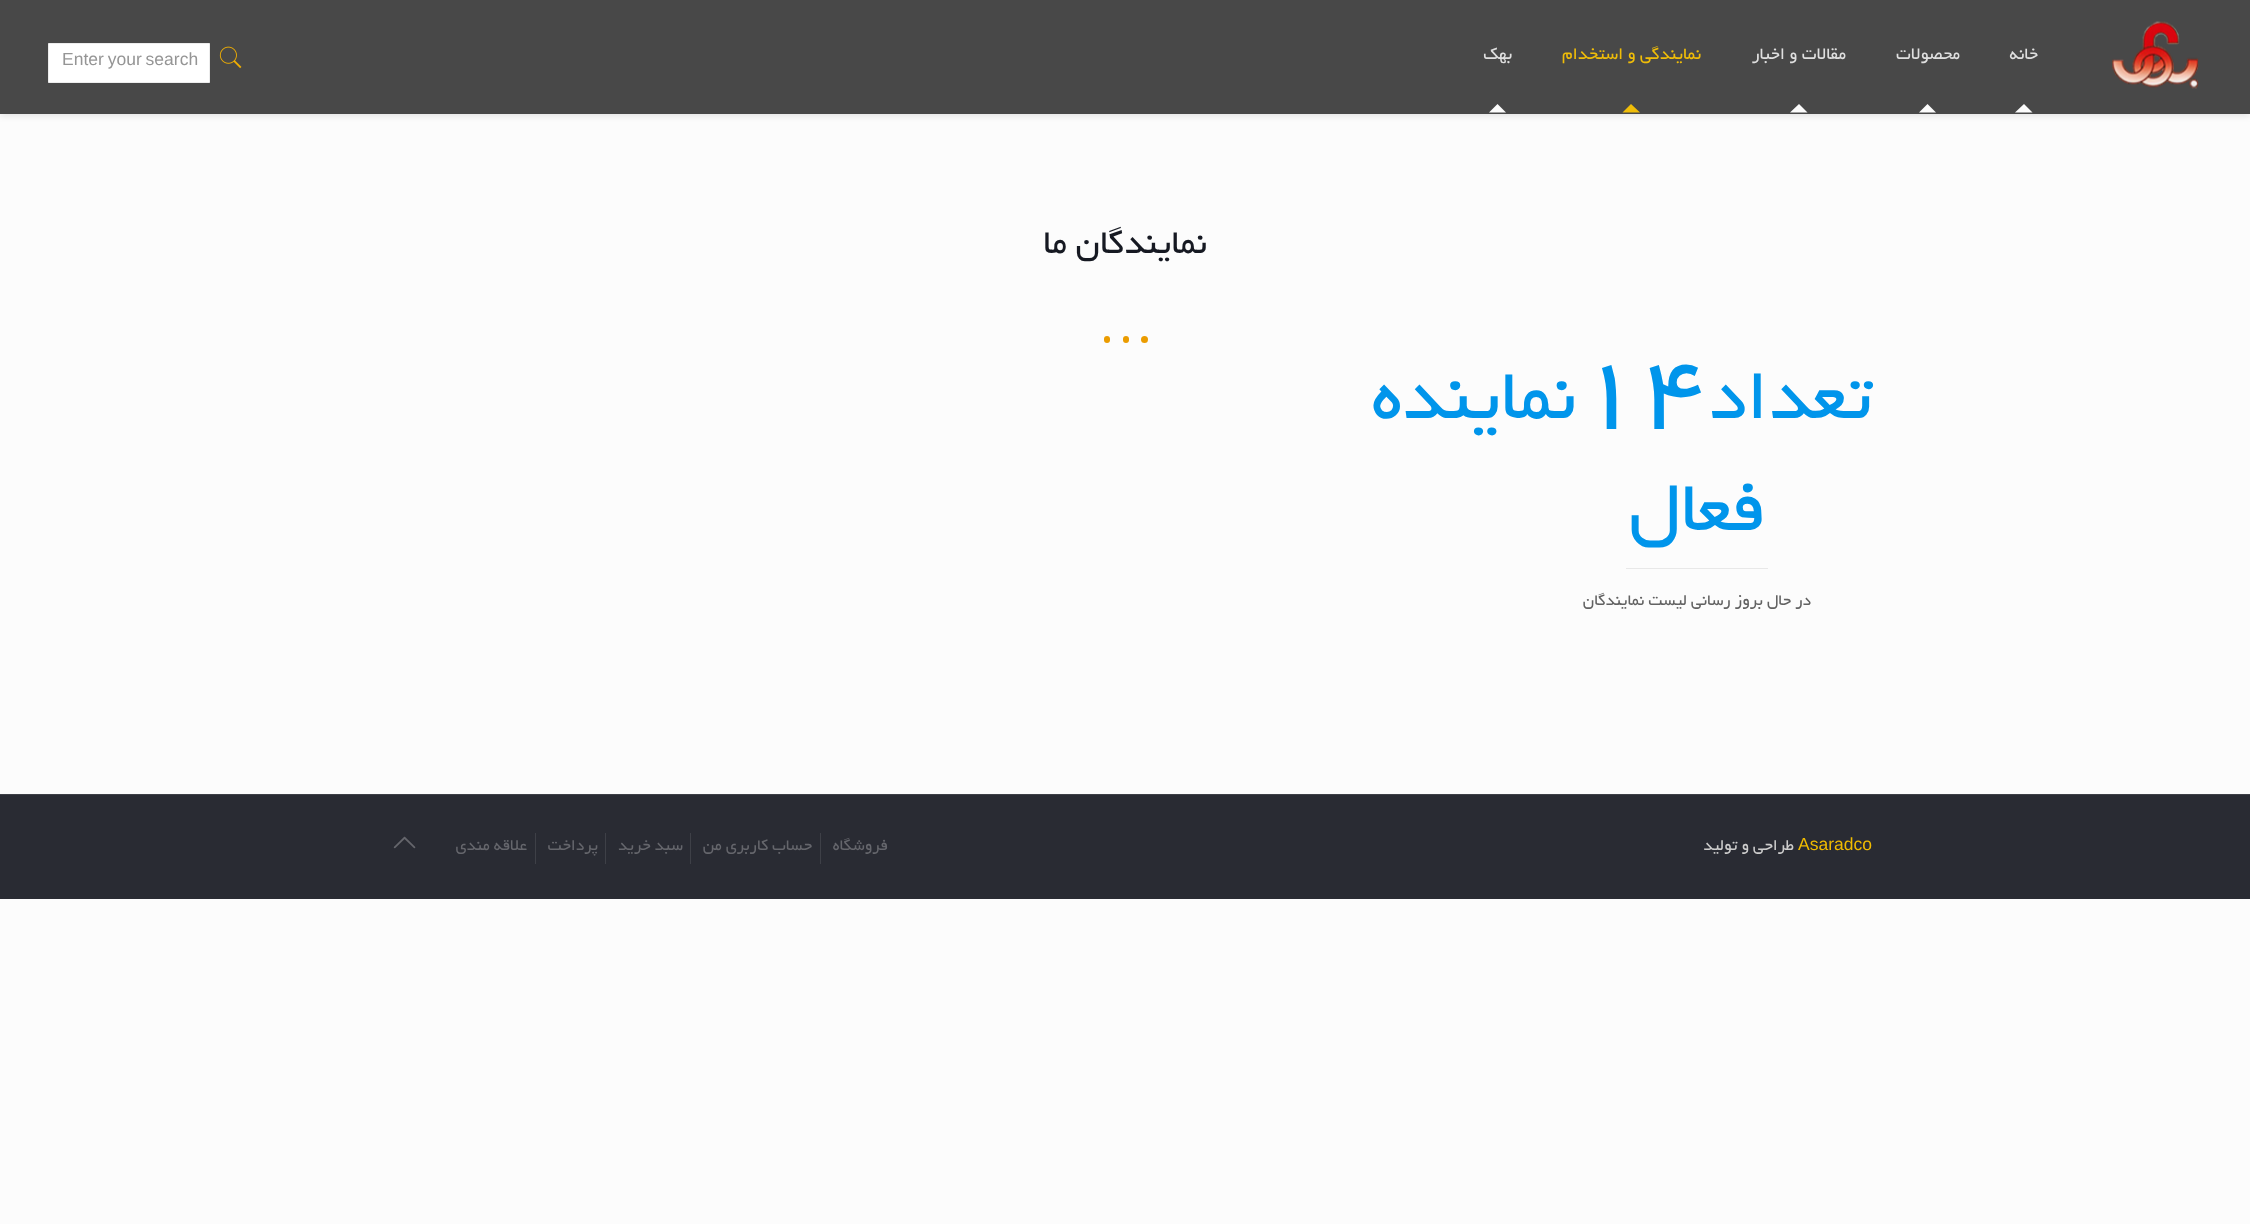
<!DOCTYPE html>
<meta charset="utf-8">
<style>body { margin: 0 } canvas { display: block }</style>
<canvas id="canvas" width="2250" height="1224"></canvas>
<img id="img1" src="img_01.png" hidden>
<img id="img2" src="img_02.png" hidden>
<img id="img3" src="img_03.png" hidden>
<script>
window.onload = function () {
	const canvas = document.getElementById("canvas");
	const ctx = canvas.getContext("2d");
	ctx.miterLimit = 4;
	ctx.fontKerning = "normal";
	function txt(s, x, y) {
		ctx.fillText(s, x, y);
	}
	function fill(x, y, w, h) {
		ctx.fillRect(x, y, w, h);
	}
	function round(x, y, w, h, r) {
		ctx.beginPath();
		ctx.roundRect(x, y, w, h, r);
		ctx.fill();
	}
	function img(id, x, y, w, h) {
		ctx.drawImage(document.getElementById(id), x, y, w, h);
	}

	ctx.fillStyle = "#FCFCFC";
	fill(0, 0, 2250, 1224);
	ctx.fillStyle = "rgba(8, 8, 8, 0.1)";
	ctx.filter = "blur(3px)";
	ctx.beginPath();
	ctx.rect(0, 3, 2250, 113);
	ctx.fill();
	ctx.filter = "none";
	ctx.fillStyle = "#484848";
	fill(0, 0, 2250, 114);
	img("img1", 2112, 21, 87, 68);
	ctx.fillStyle = "#FCFCFC";
	ctx.beginPath();
	ctx.moveTo(2032.5, 112.5);
	ctx.lineTo(2015, 112.5);
	ctx.lineTo(2024, 104);
	ctx.closePath();
	ctx.fill();
	ctx.beginPath();
	ctx.moveTo(1936, 112.5);
	ctx.lineTo(1919, 112.5);
	ctx.lineTo(1927.5, 104);
	ctx.closePath();
	ctx.fill();
	ctx.beginPath();
	ctx.moveTo(1807.5, 112.5);
	ctx.lineTo(1790, 112.5);
	ctx.lineTo(1799, 104);
	ctx.closePath();
	ctx.fill();
	ctx.fillStyle = "#F0BD08";
	ctx.beginPath();
	ctx.moveTo(1640, 112.5);
	ctx.lineTo(1622.5, 112.5);
	ctx.lineTo(1631, 104);
	ctx.closePath();
	ctx.fill();
	ctx.fillStyle = "#FCFCFC";
	ctx.beginPath();
	ctx.moveTo(1506, 112.5);
	ctx.lineTo(1489, 112.5);
	ctx.lineTo(1497.5, 104);
	ctx.closePath();
	ctx.fill();
	img("img2", 219, 46, 23, 23);
	ctx.fillStyle = "#FFFFFF";
	ctx.beginPath();
	ctx.rect(48.5, 43.5, 161, 39);
	ctx.fill();
	ctx.strokeStyle = "#ECECEC";
	ctx.stroke();
	ctx.fillStyle = "#EB9C00";
	ctx.beginPath();
	ctx.arc(1144.5, 339.5, 3.5, 0, Math.PI * 2);
	ctx.fill();
	round(1123, 336, 6, 7, 3);
	round(1104, 336, 6, 7, 3);
	ctx.fillStyle = "#E8E8E8";
	fill(1626, 568, 142, 1);
	ctx.fillStyle = "#292B33";
	fill(0, 795, 2250, 104);
	ctx.fillStyle = "#3E4047";
	fill(0, 794, 2250, 1);
	fill(820, 833, 1, 31);
	fill(690, 833, 1, 31);
	fill(605, 833, 1, 31);
	fill(535, 833, 1, 31);
	img("img3", 393, 836, 23, 13);
	ctx.direction = "rtl";
	ctx.font = "18.75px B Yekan";
	ctx.fillStyle = "#DFDFDF";
	txt("خانه", 2038, 59);
	txt("محصولات", 1960, 59);
	txt("مقالات و اخبار", 1846, 59);
	ctx.fillStyle = "#F0BD08";
	txt("نمایندگی و استخدام", 1701, 59);
	ctx.fillStyle = "#DFDFDF";
	txt("بهک", 1512, 59);
	ctx.wordSpacing = "-1px";
	ctx.direction = "ltr";
	ctx.font = "17.5px Liberation Sans";
	ctx.fillStyle = "#959595";
	txt("Enter your search", 62, 65);
	ctx.wordSpacing = "0px";
	ctx.direction = "rtl";
	ctx.font = "37.5px B Yekan";
	ctx.fillStyle = "#161922";
	txt("نمایندگان ما", 1207, 253);
	ctx.font = "79px B Yekan";
	ctx.fillStyle = "#0095EB";
	txt("تعداد", 1872, 418);
	ctx.direction = "ltr";
	ctx.font = "112px B Yekan";
	txt("14", 1576, 418);
	ctx.direction = "rtl";
	ctx.font = "79px B Yekan";
	txt("نماینده", 1576, 418);
	txt("فعال", 1766, 530);
	ctx.font = "17.5px B Yekan";
	ctx.fillStyle = "#626262";
	txt("در حال بروز رسانی لیست نمایندگان", 1811, 605);
	ctx.direction = "ltr";
	ctx.font = "17.5px Liberation Sans";
	ctx.fillStyle = "#F0BB00";
	txt("Asaradco", 1798, 850);
	ctx.direction = "rtl";
	ctx.font = "17.5px B Yekan";
	ctx.fillStyle = "#CCCCCC";
	txt("طراحی و تولید", 1794, 850);
	ctx.fillStyle = "#65666C";
	txt("فروشگاه", 888, 850);
	txt("حساب کاربری من", 812, 850);
	txt("سبد خرید", 683, 850);
	txt("پرداخت", 598, 850);
	txt("علاقه مندی", 527, 850);
};
</script>
